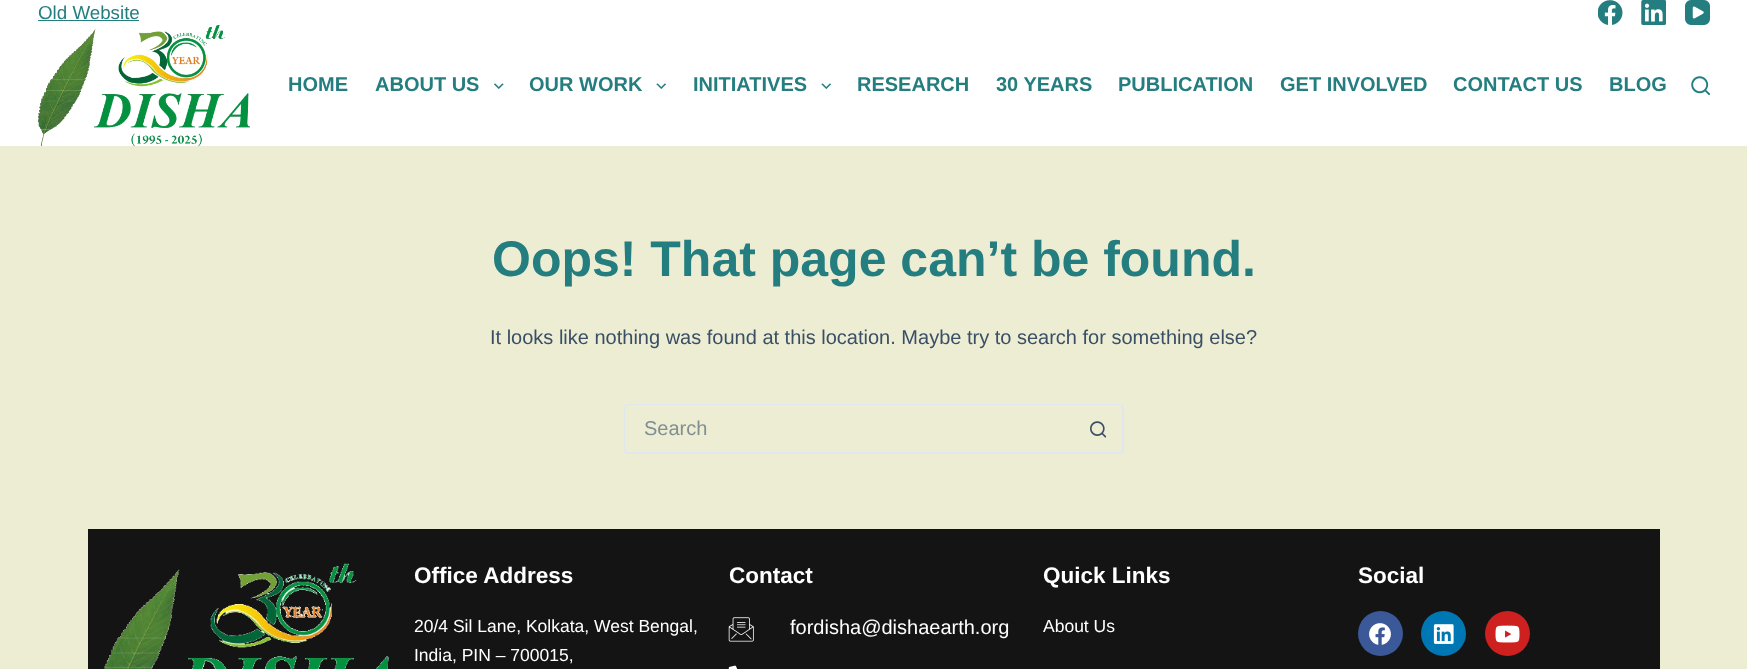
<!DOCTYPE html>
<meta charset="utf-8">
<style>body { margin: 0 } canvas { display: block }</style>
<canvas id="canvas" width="1747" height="669"></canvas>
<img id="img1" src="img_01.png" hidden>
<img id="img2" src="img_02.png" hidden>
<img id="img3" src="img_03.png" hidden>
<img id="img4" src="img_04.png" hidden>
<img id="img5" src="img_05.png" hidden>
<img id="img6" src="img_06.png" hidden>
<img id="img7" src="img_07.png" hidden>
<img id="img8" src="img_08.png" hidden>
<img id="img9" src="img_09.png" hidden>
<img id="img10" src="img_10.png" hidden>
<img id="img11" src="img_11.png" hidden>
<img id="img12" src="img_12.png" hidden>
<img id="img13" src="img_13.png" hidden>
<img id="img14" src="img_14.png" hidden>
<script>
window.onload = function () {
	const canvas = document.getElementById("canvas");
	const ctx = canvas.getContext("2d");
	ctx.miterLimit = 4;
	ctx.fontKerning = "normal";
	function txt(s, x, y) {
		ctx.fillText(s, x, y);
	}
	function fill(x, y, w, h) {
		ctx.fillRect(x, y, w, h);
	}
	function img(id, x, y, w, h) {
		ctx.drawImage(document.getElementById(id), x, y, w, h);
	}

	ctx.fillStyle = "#ECEDD3";
	fill(0, 0, 1747, 669);
	ctx.fillStyle = "#FFFFFF";
	fill(0, 0, 1747, 146);
	ctx.fillStyle = "#247D7F";
	fill(38, 20, 101, 1);
	img("img1", 1598, 0, 25, 25);
	img("img2", 1641, 0, 25, 25);
	img("img3", 1685, 0, 25, 25);
	img("img4", 38, 25, 212, 122);
	img("img5", 494, 83, 10, 6);
	img("img6", 656, 83, 10, 6);
	img("img6", 821, 83, 10, 6);
	img("img7", 1691, 76, 19, 19);
	ctx.fillStyle = "#E1E8ED";
	ctx.beginPath();
	ctx.moveTo(628, 404);
	ctx.lineTo(1074, 404);
	ctx.lineTo(1074, 454);
	ctx.lineTo(628, 454);
	ctx.bezierCurveTo(625, 454, 624, 452, 624, 450);
	ctx.lineTo(624, 408);
	ctx.bezierCurveTo(624, 405, 625, 404, 628, 404);
	ctx.closePath();
	ctx.moveTo(628, 405);
	ctx.lineTo(1074, 405);
	ctx.lineTo(1074, 452);
	ctx.lineTo(628, 452);
	ctx.bezierCurveTo(626, 452, 625, 451, 625, 450);
	ctx.lineTo(625, 408);
	ctx.bezierCurveTo(625, 406, 626, 405, 628, 405);
	ctx.closePath();
	ctx.fill("evenodd");
	ctx.beginPath();
	ctx.moveTo(1074, 404);
	ctx.lineTo(1120, 404);
	ctx.bezierCurveTo(1122, 404, 1124, 405, 1124, 408);
	ctx.lineTo(1124, 450);
	ctx.bezierCurveTo(1124, 452, 1122, 454, 1120, 454);
	ctx.lineTo(1074, 454);
	ctx.closePath();
	ctx.moveTo(1074, 405);
	ctx.lineTo(1120, 405);
	ctx.bezierCurveTo(1121, 405, 1122, 406, 1122, 408);
	ctx.lineTo(1122, 450);
	ctx.bezierCurveTo(1122, 451, 1121, 452, 1120, 452);
	ctx.lineTo(1074, 452);
	ctx.closePath();
	ctx.fill("evenodd");
	img("img8", 1090, 421, 16, 17);
	ctx.fillStyle = "#151414";
	fill(88, 529, 1572, 140);
	img("img9", 104, 563, 285, 106);
	img("img10", 728, 617, 26, 25);
	img("img11", 728, 665, 10, 4);
	ctx.fillStyle = "#3B5998";
	ctx.beginPath();
	ctx.arc(1380.5, 633.5, 22.5, 0, Math.PI * 2);
	ctx.fill();
	img("img12", 1369, 623, 22, 22);
	ctx.fillStyle = "#0077B5";
	ctx.beginPath();
	ctx.arc(1443.5, 633.5, 22.5, 0, Math.PI * 2);
	ctx.fill();
	img("img13", 1433, 624, 21, 20);
	ctx.fillStyle = "#CD201F";
	ctx.beginPath();
	ctx.arc(1507.5, 633.5, 22.5, 0, Math.PI * 2);
	ctx.fill();
	img("img14", 1495, 625, 25, 18);
	ctx.font = "18.75px Liberation Sans";
	ctx.fillStyle = "#247D7F";
	txt("Old Website", 38, 19);
	ctx.font = "bold 20px Liberation Sans";
	txt("HOME", 288, 91);
	txt("ABOUT US", 375, 91);
	txt("OUR WORK", 529, 91);
	txt("INITIATIVES", 693, 91);
	txt("RESEARCH", 857, 91);
	txt("30 YEARS", 996, 91);
	txt("PUBLICATION", 1118, 91);
	txt("GET INVOLVED", 1280, 91);
	txt("CONTACT US", 1453, 91);
	txt("BLOG", 1609, 91);
	ctx.font = "bold 50px Liberation Sans";
	txt("Oops! That page can’t be found.", 492, 276);
	ctx.font = "20px Liberation Sans";
	ctx.fillStyle = "#3A4F66";
	txt("It looks like nothing was found at this location. Maybe try to search for something else?", 490, 344);
	ctx.fillStyle = "#818E92";
	txt("Search", 644, 435);
	ctx.font = "bold 22.5px Liberation Sans";
	ctx.fillStyle = "#FFFFFF";
	txt("Office Address", 414, 583);
	ctx.font = "17.5px Liberation Sans";
	txt("20/4 Sil Lane, Kolkata, West Bengal,", 414, 632);
	txt("India, PIN – 700015,", 414, 661);
	ctx.font = "bold 22.5px Liberation Sans";
	txt("Contact", 729, 583);
	ctx.font = "20px Liberation Sans";
	txt("fordisha@dishaearth.org", 790, 634);
	ctx.font = "bold 22.5px Liberation Sans";
	txt("Quick Links", 1043, 583);
	ctx.font = "17.5px Liberation Sans";
	txt("About Us", 1043, 632);
	ctx.font = "bold 22.5px Liberation Sans";
	txt("Social", 1358, 583);
};
</script>
